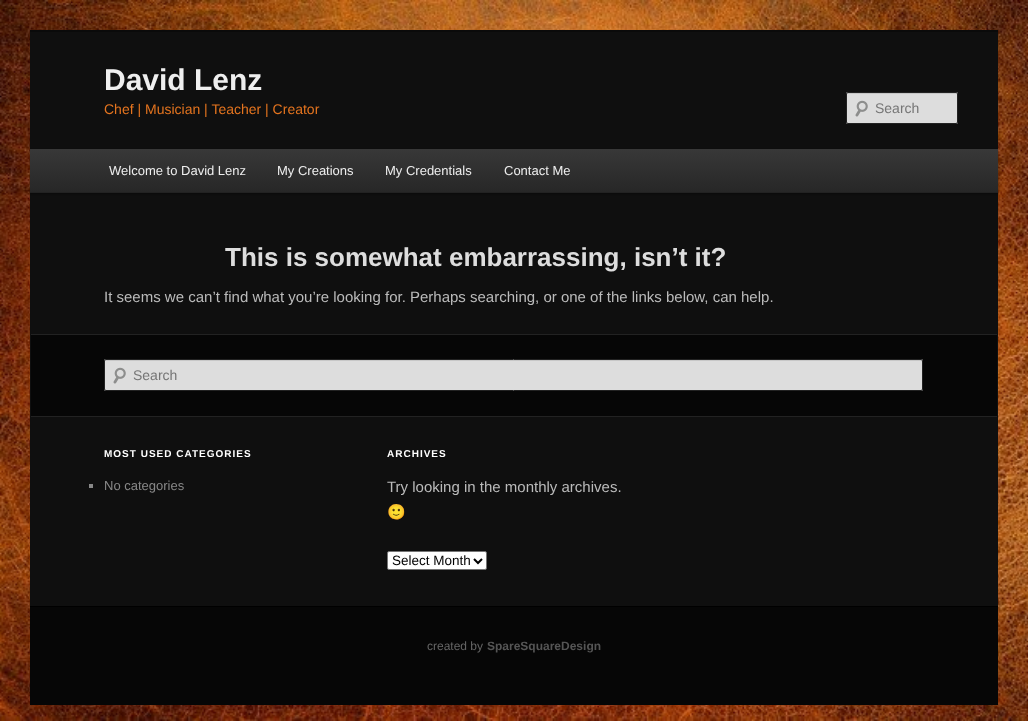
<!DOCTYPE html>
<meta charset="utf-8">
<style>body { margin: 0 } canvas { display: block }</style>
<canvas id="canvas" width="1028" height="721"></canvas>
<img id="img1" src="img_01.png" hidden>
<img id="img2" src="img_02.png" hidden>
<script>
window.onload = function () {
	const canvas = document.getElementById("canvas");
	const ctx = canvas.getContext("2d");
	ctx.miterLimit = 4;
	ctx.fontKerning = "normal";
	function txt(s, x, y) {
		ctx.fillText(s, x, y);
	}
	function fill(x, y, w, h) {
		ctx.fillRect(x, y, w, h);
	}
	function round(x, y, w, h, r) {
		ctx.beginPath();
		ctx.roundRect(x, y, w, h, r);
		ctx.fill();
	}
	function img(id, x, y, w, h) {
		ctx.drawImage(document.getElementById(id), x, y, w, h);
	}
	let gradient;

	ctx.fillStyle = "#FFFFFF";
	fill(0, 0, 1028, 721);
	img("img1", 0, 0, 1028, 721);
	ctx.fillStyle = "#0F0F0F";
	fill(30, 32, 968, 574);
	ctx.fillStyle = "#0A0A0A";
	fill(30, 30, 968, 2);
	ctx.fillStyle = "#DDDDDD";
	round(846, 92, 112, 32, 2);
	img("img2", 855, 100, 13, 17);
	ctx.fillStyle = "rgba(0, 0, 0, 0.1)";
	ctx.beginPath();
	ctx.moveTo(848, 94);
	ctx.lineTo(957, 94);
	ctx.lineTo(957, 95);
	ctx.lineTo(956, 93);
	ctx.lineTo(866, 93);
	ctx.bezierCurveTo(862, 93, 847, 88, 847, 95);
	ctx.bezierCurveTo(847, 94, 847, 94, 848, 94);
	ctx.closePath();
	ctx.fill();
	ctx.beginPath();
	ctx.roundRect(846.5, 92.5, 111, 31, 1.5);
	ctx.strokeStyle = "#222222";
	ctx.stroke();
	ctx.fillStyle = "rgba(0, 0, 0, 0.4)";
	ctx.filter = "blur(1px)";
	ctx.beginPath();
	ctx.rect(30, 150, 968, 44);
	ctx.fill();
	ctx.filter = "none";
	gradient = ctx.createLinearGradient(514, 149, 514, 192);
	gradient.addColorStop(0, "#383838");
	gradient.addColorStop(1, "#272727");
	ctx.fillStyle = gradient;
	fill(30, 149, 968, 43);
	ctx.fillStyle = "#222222";
	fill(30, 192, 968, 1);
	ctx.fillStyle = "#060606";
	fill(31, 335, 966, 81);
	ctx.fillStyle = "#222222";
	fill(31, 334, 966, 1);
	fill(31, 416, 966, 1);
	ctx.fillStyle = "#DDDDDD";
	round(104, 359, 819, 32, 2);
	img("img2", 113, 367, 13, 17);
	ctx.fillStyle = "#C7C7C7";
	ctx.beginPath();
	ctx.moveTo(106, 360);
	ctx.lineTo(105, 361);
	ctx.lineTo(921, 361);
	ctx.lineTo(922, 362);
	ctx.bezierCurveTo(922, 361, 922, 360, 921, 360);
	ctx.closePath();
	ctx.moveTo(922, 389);
	ctx.lineTo(922, 390);
	ctx.closePath();
	ctx.fill("evenodd");
	ctx.beginPath();
	ctx.roundRect(104.5, 359.5, 818, 31, 1.5);
	ctx.stroke();
	ctx.fillStyle = "#888888";
	fill(89, 484, 4, 4);
	ctx.fillStyle = "#FFFFFF";
	ctx.beginPath();
	ctx.roundRect(387.5, 551.5, 99, 18, 1.5);
	ctx.fill();
	ctx.strokeStyle = "#767676";
	ctx.stroke();
	ctx.beginPath();
	ctx.moveTo(474, 559);
	ctx.lineTo(478, 563);
	ctx.lineTo(482, 559);
	ctx.strokeStyle = "#000000";
	ctx.lineWidth = 2;
	ctx.stroke();
	ctx.fillStyle = "#060606";
	fill(30, 607, 968, 98);
	ctx.fillStyle = "#000000";
	fill(30, 606, 968, 1);
	ctx.font = "bold 30px Liberation Sans";
	ctx.fillStyle = "#EEEEEE";
	txt("David Lenz", 104, 90);
	ctx.font = "14px Liberation Sans";
	ctx.fillStyle = "#E4741F";
	txt("Chef | Musician | Teacher | Creator", 104, 114);
	ctx.fillStyle = "#757575";
	txt("Search", 875, 113);
	ctx.font = "13px Liberation Sans";
	ctx.fillStyle = "#EEEEEE";
	txt("Welcome to David Lenz", 109, 175);
	txt("My Creations", 277, 175);
	txt("My Credentials", 385, 175);
	txt("Contact Me", 504, 175);
	ctx.font = "bold 26px Liberation Sans";
	ctx.fillStyle = "#DDDDDD";
	txt("This is somewhat embarrassing, isn’t it?", 225, 266);
	ctx.font = "15px Liberation Sans";
	ctx.fillStyle = "#BBBBBB";
	txt("It seems we can’t find what you’re looking for. Perhaps searching, or one of the links below, can help.", 104, 302);
	ctx.font = "14px Liberation Sans";
	ctx.fillStyle = "#757575";
	txt("Search", 133, 380);
	ctx.letterSpacing = "1px";
	ctx.font = "bold 10px Liberation Sans";
	ctx.fillStyle = "#FFFFFF";
	txt("MOST USED CATEGORIES", 104, 457);
	ctx.letterSpacing = "0px";
	ctx.font = "13px Liberation Sans";
	ctx.fillStyle = "#888888";
	txt("No categories", 104, 490);
	ctx.letterSpacing = "1px";
	ctx.font = "bold 10px Liberation Sans";
	ctx.fillStyle = "#FFFFFF";
	txt("ARCHIVES", 387, 457);
	ctx.letterSpacing = "0px";
	ctx.font = "15px Liberation Sans";
	ctx.fillStyle = "#BBBBBB";
	txt("Try looking in the monthly archives.", 387, 492);
	ctx.font = "15px Noto Color Emoji";
	txt("🙂", 387, 517);
	ctx.font = "13.5px Liberation Sans";
	ctx.fillStyle = "#000000";
	txt("Select Month", 392, 565);
	ctx.font = "12px Liberation Sans";
	ctx.fillStyle = "#666666";
	txt("created by", 427, 650);
	ctx.font = "bold 12px Liberation Sans";
	ctx.fillStyle = "#555555";
	txt("SpareSquareDesign", 487, 650);
};
</script>
